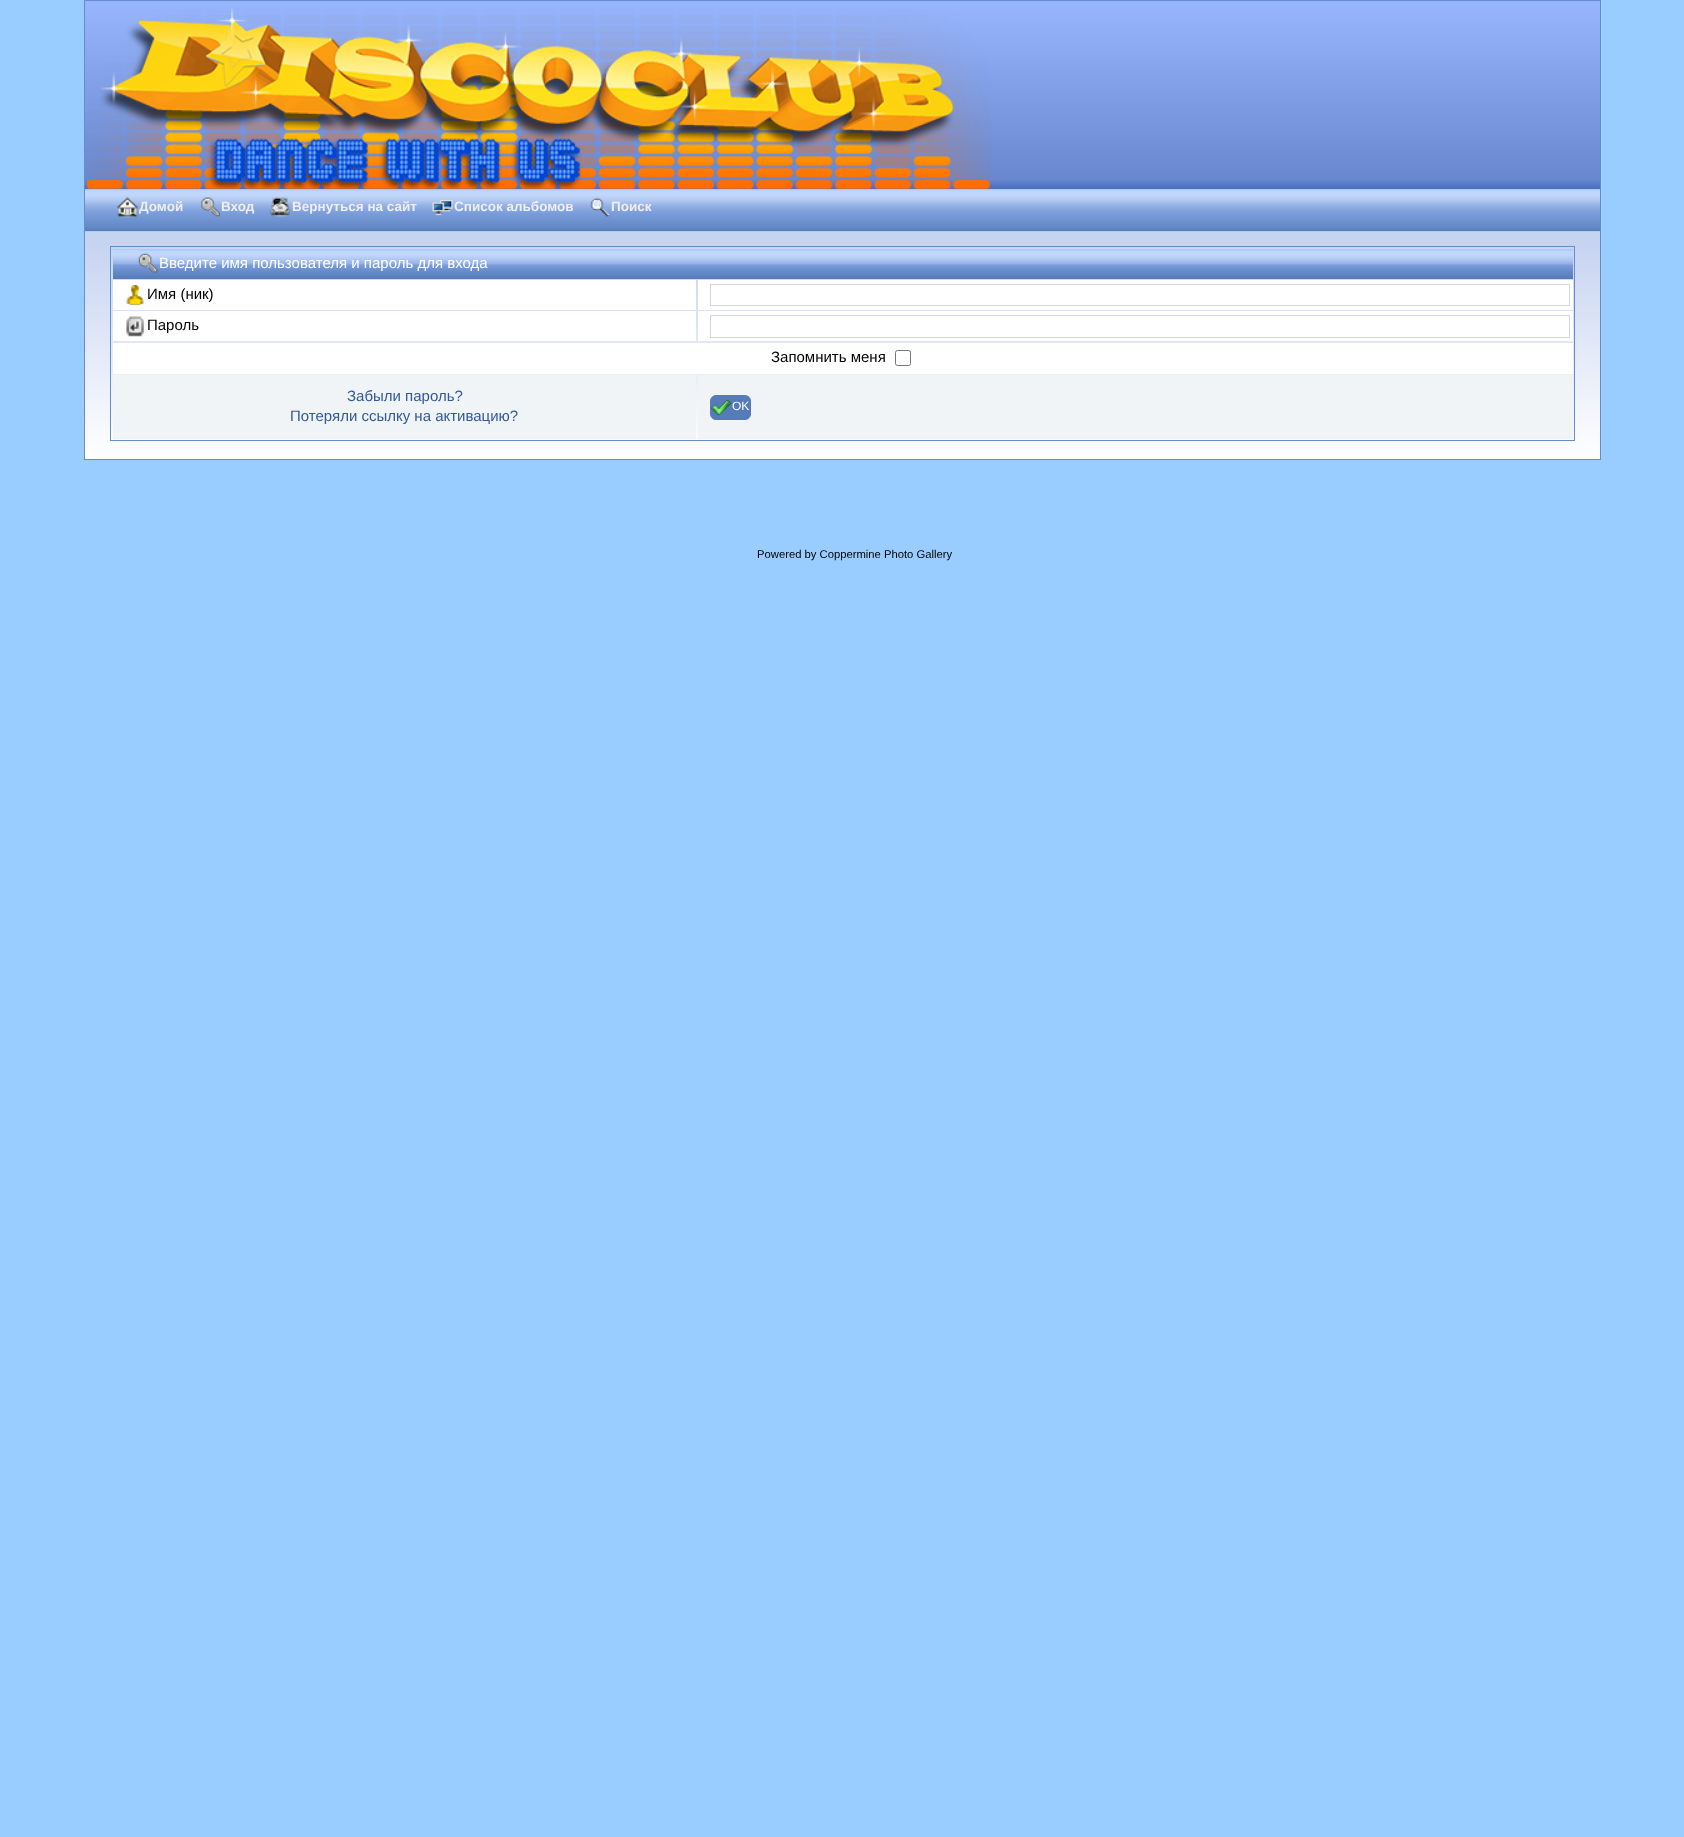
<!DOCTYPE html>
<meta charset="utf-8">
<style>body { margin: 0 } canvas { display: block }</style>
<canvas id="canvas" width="1684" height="1837"></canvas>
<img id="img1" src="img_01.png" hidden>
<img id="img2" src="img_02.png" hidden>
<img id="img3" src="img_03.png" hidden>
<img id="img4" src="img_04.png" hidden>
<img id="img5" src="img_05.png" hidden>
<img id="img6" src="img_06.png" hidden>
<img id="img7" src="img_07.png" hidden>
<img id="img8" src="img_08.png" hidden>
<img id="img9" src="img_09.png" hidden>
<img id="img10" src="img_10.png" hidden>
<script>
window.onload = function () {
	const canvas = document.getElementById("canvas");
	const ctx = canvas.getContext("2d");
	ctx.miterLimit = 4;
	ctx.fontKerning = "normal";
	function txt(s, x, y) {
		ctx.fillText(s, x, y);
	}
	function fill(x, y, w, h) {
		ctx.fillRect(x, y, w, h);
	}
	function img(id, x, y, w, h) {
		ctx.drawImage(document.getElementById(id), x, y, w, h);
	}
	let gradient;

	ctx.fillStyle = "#99CCFF";
	fill(0, 0, 1684, 1837);
	gradient = ctx.createLinearGradient(843, 1.2, 843, 189);
	gradient.addColorStop(0, "#97B6FD");
	gradient.addColorStop(0.95, "#6887CE");
	gradient.addColorStop(0.99, "#4C71C4");
	gradient.addColorStop(1, "#4C71C4");
	ctx.fillStyle = gradient;
	fill(85, 1, 1515, 188);
	ctx.fillStyle = "#668CCC";
	fill(84, 0, 1517, 1);
	fill(1600, 0, 1, 459);
	fill(84, 0, 1, 459);
	img("img1", 86, 8, 905, 181);
	gradient = ctx.createLinearGradient(843, 189, 843, 245);
	gradient.addColorStop(0, "#99BFFF");
	gradient.addColorStop(0.03, "#BDD6FF");
	gradient.addColorStop(0.1, "#C2D7FA");
	gradient.addColorStop(0.2, "#B2C9F3");
	gradient.addColorStop(0.3, "#94B0E4");
	gradient.addColorStop(0.43, "#7B9DDB");
	gradient.addColorStop(0.7, "#6287C5");
	gradient.addColorStop(0.75, "#557BB9");
	gradient.addColorStop(0.76, "#C4D4F0");
	gradient.addColorStop(1, "#C7D4F1");
	ctx.fillStyle = gradient;
	fill(85, 189, 1515, 56);
	img("img2", 117, 197, 21, 21);
	img("img3", 201, 197, 19, 20);
	img("img4", 270, 197, 20, 21);
	img("img5", 432, 200, 21, 16);
	img("img6", 590, 197, 20, 20);
	gradient = ctx.createLinearGradient(843, 245, 843, 459);
	gradient.addColorStop(0, "#C7D4F1");
	gradient.addColorStop(1, "#FFFFFF");
	ctx.fillStyle = gradient;
	fill(85, 245, 1515, 214);
	ctx.strokeStyle = "#668CCC";
	ctx.strokeRect(110.5, 246.5, 1464, 194);
	gradient = ctx.createLinearGradient(843, 249, 843, 279);
	gradient.addColorStop(0, "#99BFFF");
	gradient.addColorStop(0.03, "#BDD6FF");
	gradient.addColorStop(0.2, "#C2D7FA");
	gradient.addColorStop(0.33, "#B2C9F3");
	gradient.addColorStop(0.5, "#94B0E4");
	gradient.addColorStop(0.53, "#7B9DDB");
	gradient.addColorStop(0.8, "#6287C5");
	gradient.addColorStop(1, "#557BB9");
	ctx.fillStyle = gradient;
	fill(113, 249, 1460, 30);
	gradient = ctx.createLinearGradient(855, 250, 855, 278);
	gradient.addColorStop(0, "#99BFFF");
	gradient.addColorStop(0.03, "#BDD6FF");
	gradient.addColorStop(0.2, "#C2D7FA");
	gradient.addColorStop(0.33, "#B2C9F3");
	gradient.addColorStop(0.5, "#94B0E4");
	gradient.addColorStop(0.53, "#7B9DDB");
	gradient.addColorStop(0.8, "#6287C5");
	gradient.addColorStop(1, "#557BB9");
	ctx.fillStyle = gradient;
	fill(138, 250, 1435, 1);
	img("img7", 138, 253, 20, 20);
	ctx.fillStyle = "#FFFFFF";
	fill(113, 280, 583, 30);
	img("img8", 126, 285, 18, 20);
	fill(698, 280, 875, 30);
	ctx.strokeStyle = "#D1D7DC";
	ctx.strokeRect(710.5, 284.5, 859, 21);
	fill(113, 311, 583, 30);
	img("img9", 126, 316, 18, 21);
	fill(698, 311, 875, 30);
	ctx.strokeRect(710.5, 315.5, 859, 22);
	fill(113, 343, 1460, 31);
	ctx.beginPath();
	ctx.roundRect(895.5, 350.5, 15, 15, 2);
	ctx.strokeStyle = "#767676";
	ctx.stroke();
	ctx.fillStyle = "#F0F4F7";
	fill(113, 375, 583, 64);
	fill(698, 375, 875, 64);
	ctx.fillStyle = "#557BB9";
	ctx.beginPath();
	ctx.roundRect(710.5, 395.5, 40, 24, 5.5);
	ctx.fill();
	ctx.strokeStyle = "#557BB9";
	ctx.stroke();
	img("img10", 711, 399, 21, 17);
	ctx.fillStyle = "#668CCC";
	fill(84, 459, 1517, 1);
	ctx.font = "bold 13.5px Liberation Sans";
	ctx.fillStyle = "#EEEEEE";
	txt("Домой", 139, 211);
	txt("Вход", 221, 211);
	txt("Вернуться на сайт", 292, 211);
	txt("Список альбомов", 454, 211);
	txt("Поиск", 611, 211);
	ctx.font = "15px Liberation Sans";
	ctx.fillStyle = "#FFFFFF";
	txt("Введите имя пользователя и пароль для входа", 159, 268);
	ctx.fillStyle = "#000000";
	txt("Имя (ник)", 147, 299);
	txt("Пароль", 147, 330);
	txt("Запомнить меня", 771, 362);
	ctx.fillStyle = "#335999";
	txt("Забыли пароль?", 347, 401);
	txt("Потеряли ссылку на активацию?", 290, 421);
	ctx.font = "12px Liberation Sans";
	ctx.fillStyle = "#FFFFFF";
	txt("OK", 732, 410);
	ctx.font = "11.25px Liberation Sans";
	ctx.fillStyle = "#000000";
	txt("Powered by Coppermine Photo Gallery", 757, 558);
};
</script>
